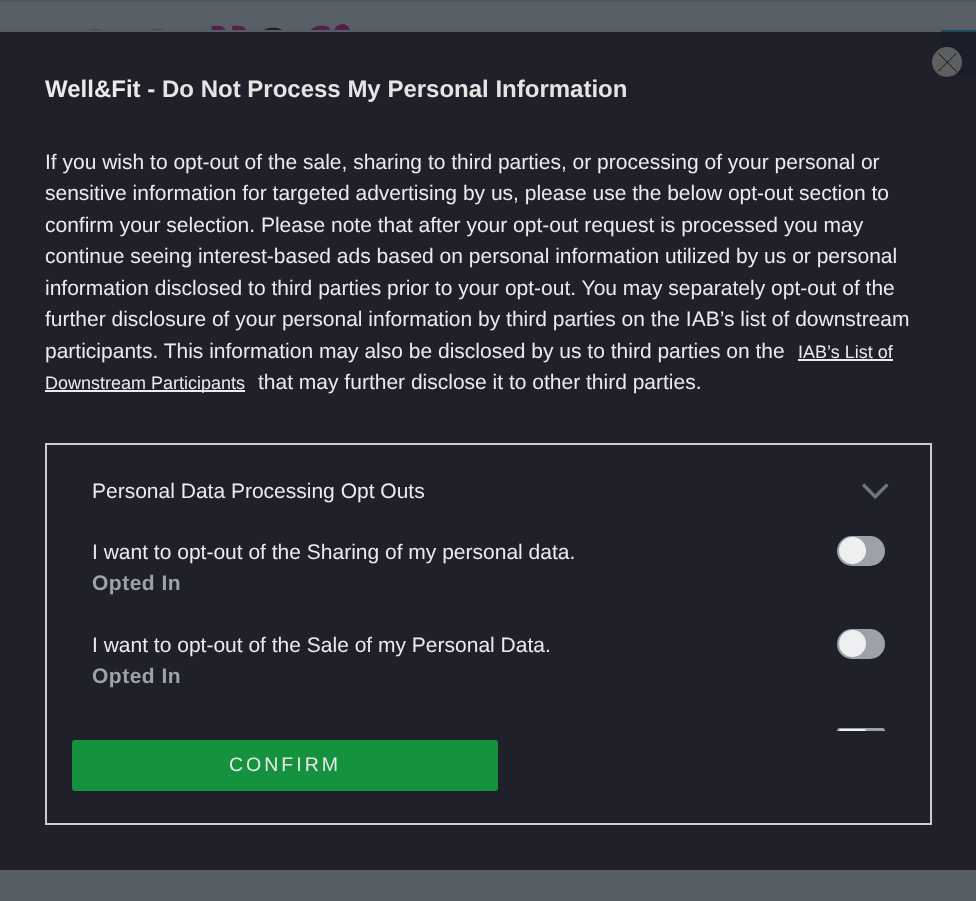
<!DOCTYPE html>
<meta charset="utf-8">
<style>body { margin: 0 } canvas { display: block }</style>
<canvas id="canvas" width="976" height="901"></canvas>
<img id="img1" src="img_01.png" hidden>
<img id="img2" src="img_02.png" hidden>
<script>
window.onload = function () {
	const canvas = document.getElementById("canvas");
	const ctx = canvas.getContext("2d");
	ctx.miterLimit = 4;
	ctx.fontKerning = "normal";
	function txt(s, x, y) {
		ctx.fillText(s, x, y);
	}
	function fill(x, y, w, h) {
		ctx.fillRect(x, y, w, h);
	}
	function round(x, y, w, h, r) {
		ctx.beginPath();
		ctx.roundRect(x, y, w, h, r);
		ctx.fill();
	}
	function img(id, x, y, w, h) {
		ctx.drawImage(document.getElementById(id), x, y, w, h);
	}

	ctx.fillStyle = "#595F67";
	fill(0, 0, 976, 901);
	ctx.fillStyle = "#4E545D";
	fill(0, 0, 976, 2);
	img("img1", 90, 23, 260, 7);
	ctx.fillStyle = "rgba(25, 31, 40, 0.23)";
	ctx.filter = "blur(2px)";
	ctx.beginPath();
	ctx.rect(2, 32, 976, 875);
	ctx.fill();
	ctx.filter = "none";
	ctx.fillStyle = "#575D65";
	fill(1, 31, 975, 870);
	ctx.fillStyle = "#194D5A";
	fill(941, 30, 35, 45);
	ctx.fillStyle = "rgba(25, 25, 34, 0.9)";
	fill(0, 32, 976, 838);
	ctx.fillStyle = "rgba(102, 102, 102, 0.9)";
	ctx.beginPath();
	ctx.arc(947, 62, 15, 0, Math.PI * 2);
	ctx.fill();
	ctx.save();
	ctx.beginPath();
	ctx.rect(938, 53, 19, 19);
	ctx.clip();
	ctx.beginPath();
	ctx.moveTo(938, 53);
	ctx.lineTo(956.5, 71.5);
	ctx.moveTo(956.5, 53);
	ctx.lineTo(938, 71.5);
	ctx.strokeStyle = "#09090A";
	ctx.lineWidth = 0.8;
	ctx.lineCap = "round";
	ctx.lineJoin = "round";
	ctx.stroke();
	ctx.restore();
	ctx.fillStyle = "#EBEBEC";
	fill(798, 359, 95, 2);
	fill(45, 390, 200, 2);
	ctx.strokeStyle = "#CBCCCD";
	ctx.lineWidth = 2;
	ctx.strokeRect(46, 444, 885, 380);
	img("img2", 862, 483, 27, 16);
	ctx.fillStyle = "#9EA1A7";
	ctx.beginPath();
	ctx.roundRect(838, 537, 46, 28, 14);
	ctx.fill();
	ctx.strokeStyle = "#9EA1A7";
	ctx.stroke();
	ctx.fillStyle = "#EEEFF0";
	ctx.beginPath();
	ctx.arc(852.5, 550.5, 13.5, 0, Math.PI * 2);
	ctx.fill();
	ctx.fillStyle = "#9EA1A7";
	ctx.beginPath();
	ctx.roundRect(838, 630, 46, 28, 14);
	ctx.fill();
	ctx.stroke();
	ctx.fillStyle = "#EEEFF0";
	ctx.beginPath();
	ctx.arc(852.5, 643.5, 13.5, 0, Math.PI * 2);
	ctx.fill();
	ctx.fillStyle = "#9EA1A7";
	ctx.beginPath();
	ctx.roundRect(837, 728, 48, 3, [15, 15, 0, 0]);
	ctx.fill();
	ctx.save();
	ctx.beginPath();
	ctx.rect(62, 459, 853, 272);
	ctx.clip();
	ctx.beginPath();
	ctx.roundRect(838, 729, 46, 28, 14);
	ctx.stroke();
	ctx.restore();
	ctx.fillStyle = "#EEEFF0";
	ctx.beginPath();
	ctx.roundRect(839, 729, 27, 2, [13.5, 13.5, 0, 0]);
	ctx.fill();
	ctx.fillStyle = "#15923D";
	round(72, 740, 426, 51, 3);
	ctx.font = "bold 24px Liberation Sans";
	ctx.fillStyle = "#EBEBEC";
	txt("Well&Fit -", 45, 97);
	ctx.fillStyle = "#E5E5E6";
	txt("Do Not Process My Personal Information", 162, 97);
	ctx.font = "21px Liberation Sans";
	ctx.fillStyle = "#EBEBEC";
	txt("If you wish to opt-out of the sale, sharing to third parties, or processing of your personal or", 45, 169);
	txt("sensitive information for targeted advertising by us, please use the below opt-out section to", 45, 200);
	txt("confirm your selection. Please note that after your opt-out request is processed you may", 45, 232);
	txt("continue seeing interest-based ads based on personal information utilized by us or personal", 45, 263);
	txt("information disclosed to third parties prior to your opt-out. You may separately opt-out of the", 45, 295);
	txt("further disclosure of your personal information by third parties on the IAB’s list of downstream", 45, 326);
	txt("participants. This information may also be disclosed by us to third parties on the", 45, 358);
	ctx.font = "18px Liberation Sans";
	txt("IAB’s List of", 798, 358);
	txt("Downstream Participants", 45, 389);
	ctx.font = "21px Liberation Sans";
	txt("that may further disclose it to other third parties.", 258, 389);
	txt("Personal Data Processing Opt Outs", 92, 498);
	txt("I want to opt-out of the Sharing of my personal data.", 92, 559);
	ctx.letterSpacing = "0.5px";
	ctx.font = "bold 21px Liberation Sans";
	ctx.fillStyle = "#9EA1A7";
	txt("Opted In", 92, 590);
	ctx.letterSpacing = "0px";
	ctx.font = "21px Liberation Sans";
	ctx.fillStyle = "#EBEBEC";
	txt("I want to opt-out of the Sale of my Personal Data.", 92, 652);
	ctx.letterSpacing = "0.5px";
	ctx.font = "bold 21px Liberation Sans";
	ctx.fillStyle = "#9EA1A7";
	txt("Opted In", 92, 683);
	ctx.letterSpacing = "3px";
	ctx.font = "19.5px Liberation Sans";
	ctx.fillStyle = "#EBEBEC";
	txt("CONFIRM", 229, 771);
};
</script>
